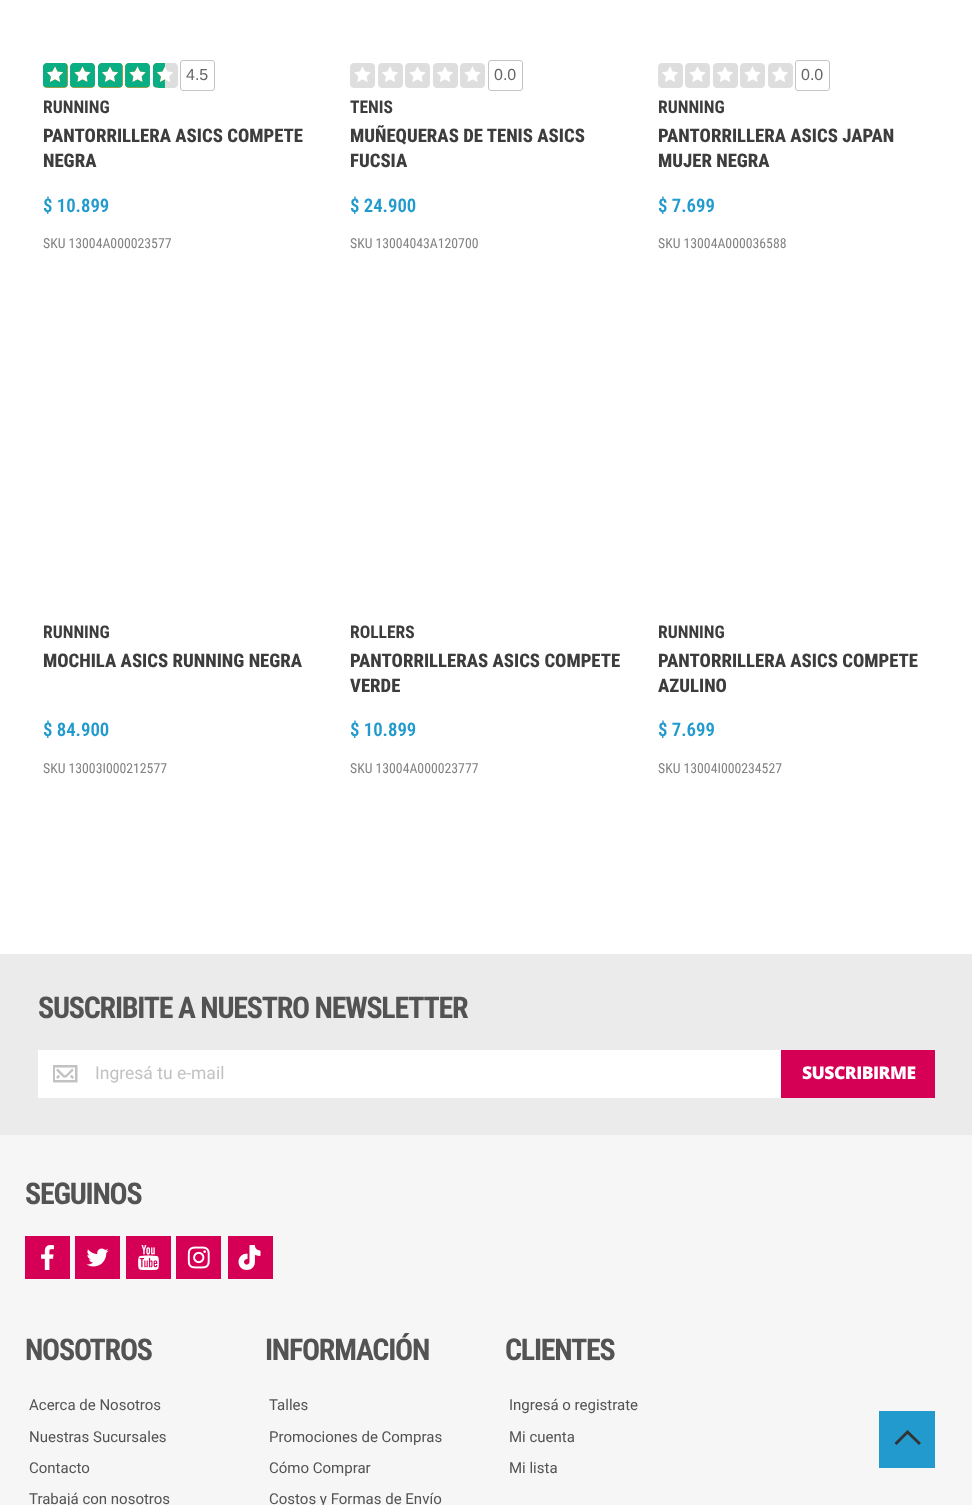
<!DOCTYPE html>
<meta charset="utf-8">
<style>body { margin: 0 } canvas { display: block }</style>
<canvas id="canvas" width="972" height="1505"></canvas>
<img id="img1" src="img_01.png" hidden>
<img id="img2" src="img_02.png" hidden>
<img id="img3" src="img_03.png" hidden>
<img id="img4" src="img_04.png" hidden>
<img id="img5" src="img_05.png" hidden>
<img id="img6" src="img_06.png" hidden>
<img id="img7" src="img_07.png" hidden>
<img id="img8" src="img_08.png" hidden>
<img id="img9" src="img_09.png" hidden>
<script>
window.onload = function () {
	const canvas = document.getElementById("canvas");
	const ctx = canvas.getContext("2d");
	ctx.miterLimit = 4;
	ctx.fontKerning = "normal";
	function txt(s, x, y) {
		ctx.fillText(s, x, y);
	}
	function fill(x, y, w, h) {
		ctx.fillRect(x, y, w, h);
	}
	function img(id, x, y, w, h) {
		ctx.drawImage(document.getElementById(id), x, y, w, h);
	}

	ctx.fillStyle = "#FFFFFF";
	fill(0, 0, 972, 1505);
	img("img1", 43, 63, 25, 25);
	img("img2", 70, 63, 25, 25);
	img("img1", 98, 63, 25, 25);
	img("img2", 125, 63, 25, 25);
	img("img3", 153, 63, 25, 25);
	ctx.beginPath();
	ctx.roundRect(180.5, 60.5, 34, 30, 2.5);
	ctx.strokeStyle = "#C5C5C5";
	ctx.stroke();
	img("img4", 350, 63, 25, 25);
	img("img5", 378, 63, 25, 25);
	img("img4", 405, 63, 25, 25);
	img("img5", 433, 63, 25, 25);
	img("img4", 460, 63, 25, 25);
	ctx.beginPath();
	ctx.roundRect(488.5, 60.5, 34, 30, 2.5);
	ctx.stroke();
	img("img5", 658, 63, 25, 25);
	img("img4", 685, 63, 25, 25);
	img("img5", 713, 63, 25, 25);
	img("img4", 740, 63, 25, 25);
	img("img5", 768, 63, 25, 25);
	ctx.beginPath();
	ctx.roundRect(795.5, 60.5, 34, 30, 2.5);
	ctx.stroke();
	ctx.fillStyle = "#F6F6F6";
	fill(0, 1135, 972, 370);
	ctx.fillStyle = "#EBEBEB";
	fill(0, 954, 972, 181);
	ctx.fillStyle = "#FFFFFF";
	fill(38, 1050, 743, 48);
	img("img6", 53, 1065, 25, 18);
	ctx.fillStyle = "#D50056";
	fill(781, 1050, 154, 48);
	fill(25, 1236, 45, 43);
	img("img7", 41, 1245, 13, 25);
	fill(75, 1236, 45, 43);
	img("img8", 86, 1248, 23, 19);
	fill(126, 1236, 45, 43);
	fill(176, 1236, 45, 43);
	img("img9", 187, 1246, 23, 23);
	fill(228, 1236, 45, 43);
	ctx.fillStyle = "#229ACD";
	fill(879, 1411, 56, 57);
	ctx.fillStyle = "#333333";
	ctx.beginPath();
	ctx.moveTo(907.5, 1430);
	ctx.lineTo(894.5, 1443);
	ctx.lineTo(896.5, 1445);
	ctx.lineTo(907.5, 1434);
	ctx.lineTo(919, 1445);
	ctx.lineTo(921, 1443);
	ctx.closePath();
	ctx.fill();
	ctx.font = "16px Liberation Sans";
	ctx.fillStyle = "#666666";
	txt("4.5", 186, 80);
	ctx.font = "bold 17.5px Roboto Condensed";
	ctx.fillStyle = "#3D3D3D";
	txt("RUNNING", 43, 113);
	ctx.font = "800 18.75px Roboto Condensed";
	txt("PANTORRILLERA ASICS COMPETE", 43, 142);
	txt("NEGRA", 43, 167);
	ctx.font = "600 18.75px Roboto Condensed";
	ctx.fillStyle = "#229ACD";
	txt("$ 10.899", 43, 212);
	ctx.font = "13.75px Roboto Condensed";
	ctx.fillStyle = "#828282";
	txt("SKU 13004A000023577", 43, 248);
	ctx.font = "16px Liberation Sans";
	ctx.fillStyle = "#666666";
	txt("0.0", 494, 80);
	ctx.font = "bold 17.5px Roboto Condensed";
	ctx.fillStyle = "#3D3D3D";
	txt("TENIS", 350, 113);
	ctx.font = "800 18.75px Roboto Condensed";
	txt("MUÑEQUERAS DE TENIS ASICS", 350, 142);
	txt("FUCSIA", 350, 167);
	ctx.font = "600 18.75px Roboto Condensed";
	ctx.fillStyle = "#229ACD";
	txt("$ 24.900", 350, 212);
	ctx.font = "13.75px Roboto Condensed";
	ctx.fillStyle = "#828282";
	txt("SKU 13004043A120700", 350, 248);
	ctx.font = "16px Liberation Sans";
	ctx.fillStyle = "#666666";
	txt("0.0", 801, 80);
	ctx.font = "bold 17.5px Roboto Condensed";
	ctx.fillStyle = "#3D3D3D";
	txt("RUNNING", 658, 113);
	ctx.font = "800 18.75px Roboto Condensed";
	txt("PANTORRILLERA ASICS JAPAN", 658, 142);
	txt("MUJER NEGRA", 658, 167);
	ctx.font = "600 18.75px Roboto Condensed";
	ctx.fillStyle = "#229ACD";
	txt("$ 7.699", 658, 212);
	ctx.font = "13.75px Roboto Condensed";
	ctx.fillStyle = "#828282";
	txt("SKU 13004A000036588", 658, 248);
	ctx.font = "bold 17.5px Roboto Condensed";
	ctx.fillStyle = "#3D3D3D";
	txt("RUNNING", 43, 638);
	ctx.font = "800 18.75px Roboto Condensed";
	txt("MOCHILA ASICS RUNNING NEGRA", 43, 667);
	ctx.font = "600 18.75px Roboto Condensed";
	ctx.fillStyle = "#229ACD";
	txt("$ 84.900", 43, 736);
	ctx.font = "13.75px Roboto Condensed";
	ctx.fillStyle = "#828282";
	txt("SKU 13003I000212577", 43, 773);
	ctx.font = "bold 17.5px Roboto Condensed";
	ctx.fillStyle = "#3D3D3D";
	txt("ROLLERS", 350, 638);
	ctx.font = "800 18.75px Roboto Condensed";
	txt("PANTORRILLERAS ASICS COMPETE", 350, 667);
	txt("VERDE", 350, 692);
	ctx.font = "600 18.75px Roboto Condensed";
	ctx.fillStyle = "#229ACD";
	txt("$ 10.899", 350, 736);
	ctx.font = "13.75px Roboto Condensed";
	ctx.fillStyle = "#828282";
	txt("SKU 13004A000023777", 350, 773);
	ctx.font = "bold 17.5px Roboto Condensed";
	ctx.fillStyle = "#3D3D3D";
	txt("RUNNING", 658, 638);
	ctx.font = "800 18.75px Roboto Condensed";
	txt("PANTORRILLERA ASICS COMPETE", 658, 667);
	txt("AZULINO", 658, 692);
	ctx.font = "600 18.75px Roboto Condensed";
	ctx.fillStyle = "#229ACD";
	txt("$ 7.699", 658, 736);
	ctx.font = "13.75px Roboto Condensed";
	ctx.fillStyle = "#828282";
	txt("SKU 13004I000234527", 658, 773);
	ctx.letterSpacing = "-1.25px";
	ctx.font = "bold 30px Roboto Condensed";
	ctx.fillStyle = "#535353";
	txt("SUSCRIBITE A NUESTRO NEWSLETTER", 38, 1018);
	ctx.letterSpacing = "0px";
	ctx.font = "17.5px Roboto";
	ctx.fillStyle = "#C2C2C2";
	txt("Ingresá tu e-mail", 95, 1079);
	ctx.letterSpacing = "-0.5px";
	ctx.font = "800 17.5px Open Sans";
	ctx.fillStyle = "#FFFFFF";
	txt("SUSCRIBIRME", 802, 1079);
	ctx.letterSpacing = "-1.25px";
	ctx.font = "bold 30px Roboto Condensed";
	ctx.fillStyle = "#535353";
	txt("SEGUINOS", 25, 1204);
	ctx.letterSpacing = "0px";
	ctx.font = "25px 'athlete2'";
	ctx.fillStyle = "#FFFFFF";
	txt("4", 136, 1270);
	txt(";", 237, 1270);
	ctx.letterSpacing = "-1.25px";
	ctx.font = "bold 30px Roboto Condensed";
	ctx.fillStyle = "#535353";
	txt("NOSOTROS", 25, 1360);
	ctx.letterSpacing = "0px";
	ctx.font = "15px Roboto";
	txt("Acerca de Nosotros", 29, 1410);
	txt("Nuestras Sucursales", 29, 1442);
	txt("Contacto", 29, 1473);
	txt("Trabajá con nosotros", 29, 1504);
	ctx.letterSpacing = "-1.25px";
	ctx.font = "bold 30px Roboto Condensed";
	txt("INFORMACIÓN", 265, 1360);
	ctx.letterSpacing = "0px";
	ctx.font = "15px Roboto";
	txt("Talles", 269, 1410);
	txt("Promociones de Compras", 269, 1442);
	txt("Cómo Comprar", 269, 1473);
	txt("Costos y Formas de Envío", 269, 1504);
	ctx.letterSpacing = "-1.25px";
	ctx.font = "bold 30px Roboto Condensed";
	txt("CLIENTES", 505, 1360);
	ctx.letterSpacing = "0px";
	ctx.font = "15px Roboto";
	txt("Ingresá o registrate", 509, 1410);
	txt("Mi cuenta", 509, 1442);
	txt("Mi lista", 509, 1473);
};
</script>
